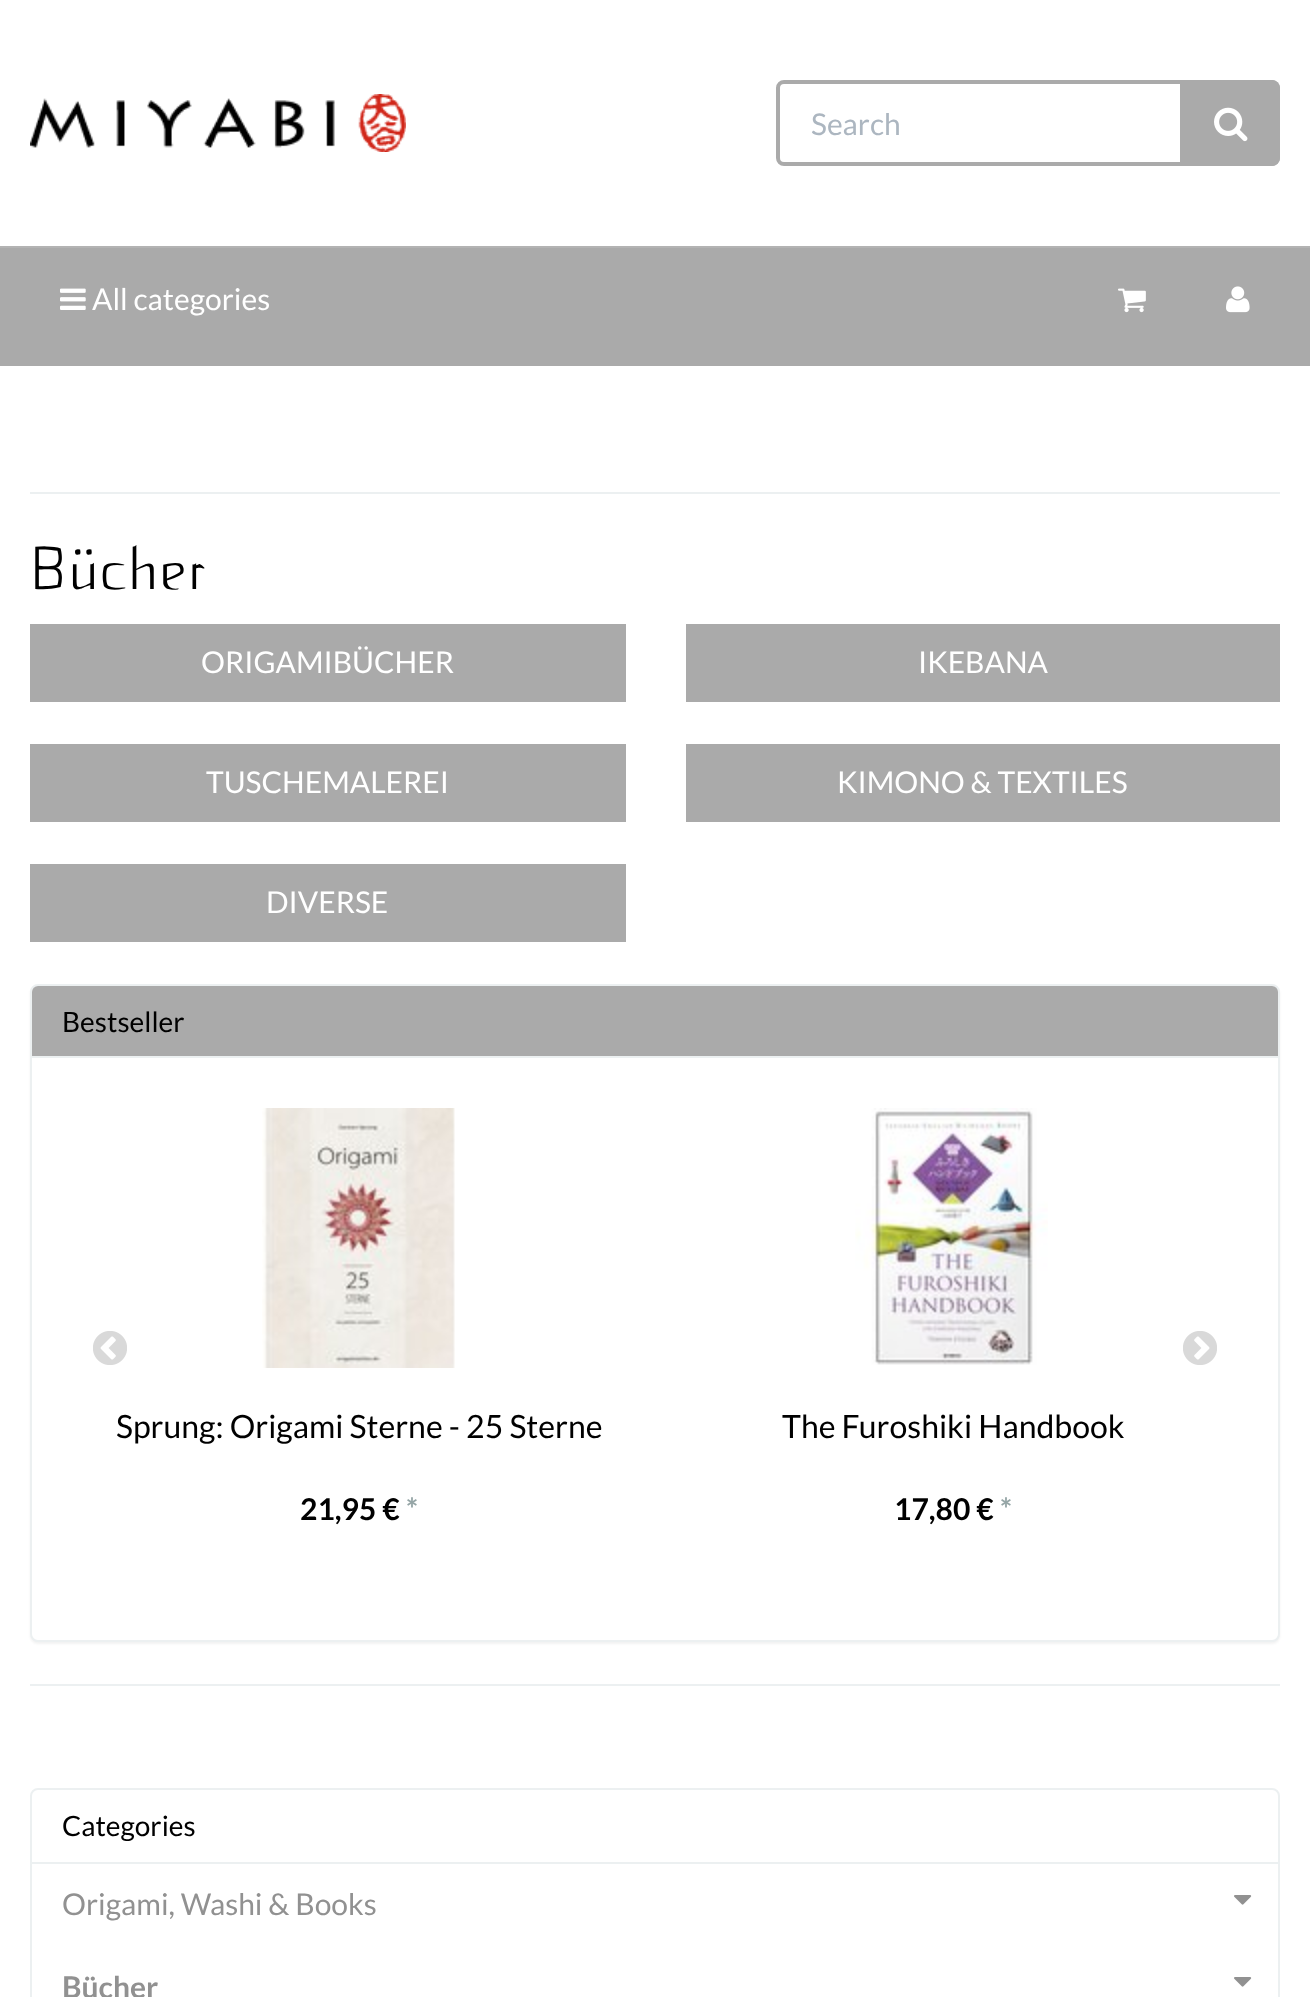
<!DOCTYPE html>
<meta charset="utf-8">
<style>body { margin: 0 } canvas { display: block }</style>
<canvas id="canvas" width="1310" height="1997"></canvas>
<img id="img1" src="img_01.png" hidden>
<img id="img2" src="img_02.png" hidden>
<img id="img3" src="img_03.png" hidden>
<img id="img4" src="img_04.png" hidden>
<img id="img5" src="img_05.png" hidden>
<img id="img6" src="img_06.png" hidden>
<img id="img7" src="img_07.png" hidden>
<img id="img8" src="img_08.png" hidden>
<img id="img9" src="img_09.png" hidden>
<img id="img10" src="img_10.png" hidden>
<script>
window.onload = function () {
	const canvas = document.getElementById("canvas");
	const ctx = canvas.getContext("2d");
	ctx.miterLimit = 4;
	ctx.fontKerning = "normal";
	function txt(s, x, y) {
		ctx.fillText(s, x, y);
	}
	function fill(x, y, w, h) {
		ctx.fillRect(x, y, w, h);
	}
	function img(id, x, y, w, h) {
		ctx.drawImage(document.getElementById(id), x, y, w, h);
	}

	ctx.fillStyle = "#FFFFFF";
	fill(0, 0, 1310, 1997);
	img("img1", 30, 94, 376, 58);
	ctx.beginPath();
	ctx.roundRect(778, 82, 404, 82, [6, 0, 0, 6]);
	ctx.strokeStyle = "#AAAAAA";
	ctx.lineWidth = 4;
	ctx.stroke();
	ctx.fillStyle = "#AAAAAA";
	ctx.beginPath();
	ctx.roundRect(1184, 80, 96, 86, [0, 8, 8, 0]);
	ctx.fill();
	ctx.beginPath();
	ctx.moveTo(1184, 80);
	ctx.lineTo(1272, 80);
	ctx.bezierCurveTo(1276, 80, 1280, 84, 1280, 88);
	ctx.lineTo(1280, 158);
	ctx.bezierCurveTo(1280, 162, 1276, 166, 1272, 166);
	ctx.lineTo(1184, 166);
	ctx.closePath();
	ctx.moveTo(1184, 82);
	ctx.lineTo(1272, 82);
	ctx.bezierCurveTo(1275, 82, 1278, 85, 1278, 88);
	ctx.lineTo(1278, 158);
	ctx.bezierCurveTo(1278, 161, 1275, 164, 1272, 164);
	ctx.lineTo(1184, 164);
	ctx.closePath();
	ctx.fill("evenodd");
	img("img2", 1214, 107, 34, 35);
	fill(0, 248, 1310, 118);
	ctx.fillStyle = "#B3B3B3";
	fill(0, 246, 1310, 2);
	img("img3", 60, 288, 26, 22);
	img("img4", 1118, 288, 28, 25);
	img("img5", 1226, 286, 24, 27);
	ctx.fillStyle = "#ECF0F1";
	fill(30, 492, 1250, 2);
	ctx.fillStyle = "#AAAAAA";
	fill(30, 624, 596, 78);
	fill(686, 624, 594, 78);
	fill(30, 744, 596, 78);
	fill(686, 744, 594, 78);
	fill(30, 864, 596, 78);
	ctx.fillStyle = "rgba(0, 0, 0, 0.05)";
	ctx.filter = "blur(1px)";
	ctx.beginPath();
	ctx.roundRect(30, 986, 1250, 658, 8);
	ctx.fill();
	ctx.filter = "none";
	ctx.fillStyle = "#FFFFFF";
	ctx.beginPath();
	ctx.roundRect(31, 985, 1248, 656, 7);
	ctx.fill();
	ctx.strokeStyle = "#ECF0F1";
	ctx.lineWidth = 2;
	ctx.stroke();
	ctx.fillStyle = "#AAAAAA";
	ctx.beginPath();
	ctx.roundRect(32, 986, 1246, 72, [6, 6, 0, 0]);
	ctx.fill();
	ctx.fillStyle = "#ECF0F1";
	fill(32, 1056, 1246, 2);
	img("img6", 93, 1331, 34, 34);
	img("img7", 1183, 1331, 34, 34);
	img("img8", 262, 1108, 193, 260);
	img("img9", 855, 1108, 193, 257);
	fill(30, 1684, 1250, 2);
	ctx.beginPath();
	ctx.roundRect(31, 1789, 1248, 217, 7);
	ctx.stroke();
	fill(32, 1862, 1246, 2);
	img("img10", 1234, 1895, 18, 10);
	img("img10", 1234, 1977, 18, 10);
	ctx.font = "30px Lato";
	ctx.fillStyle = "#ACB6C0";
	txt("Search", 811, 135);
	ctx.fillStyle = "#FFFFFF";
	txt("All categories", 92, 310);
	ctx.font = "60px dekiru";
	ctx.fillStyle = "#000000";
	txt("Bücher", 30, 589);
	ctx.font = "30px Lato";
	ctx.fillStyle = "#FFFFFF";
	txt("ORIGAMIBÜCHER", 201, 673);
	txt("IKEBANA", 918, 673);
	txt("TUSCHEMALEREI", 206, 793);
	txt("KIMONO & TEXTILES", 837, 793);
	txt("DIVERSE", 266, 913);
	ctx.font = "28px Lato";
	ctx.fillStyle = "#000000";
	txt("Bestseller", 62, 1032);
	ctx.font = "32px Lato";
	txt("Sprung: Origami Sterne - 25 Sterne", 116, 1438);
	ctx.font = "bold 30px Lato";
	txt("21,95 €", 300, 1520);
	ctx.fillStyle = "#95A5A6";
	txt("*", 406, 1520);
	ctx.font = "32px Lato";
	ctx.fillStyle = "#000000";
	txt("The Furoshiki Handbook", 782, 1438);
	ctx.font = "bold 30px Lato";
	txt("17,80 €", 894, 1520);
	ctx.fillStyle = "#95A5A6";
	txt("*", 1000, 1520);
	ctx.font = "28px Lato";
	ctx.fillStyle = "#000000";
	txt("Categories", 62, 1836);
	ctx.font = "30px Lato";
	ctx.fillStyle = "#919191";
	txt("Origami, Washi & Books", 62, 1915);
	ctx.font = "bold 30px Lato";
	txt("Bücher", 62, 1998);
};
</script>
